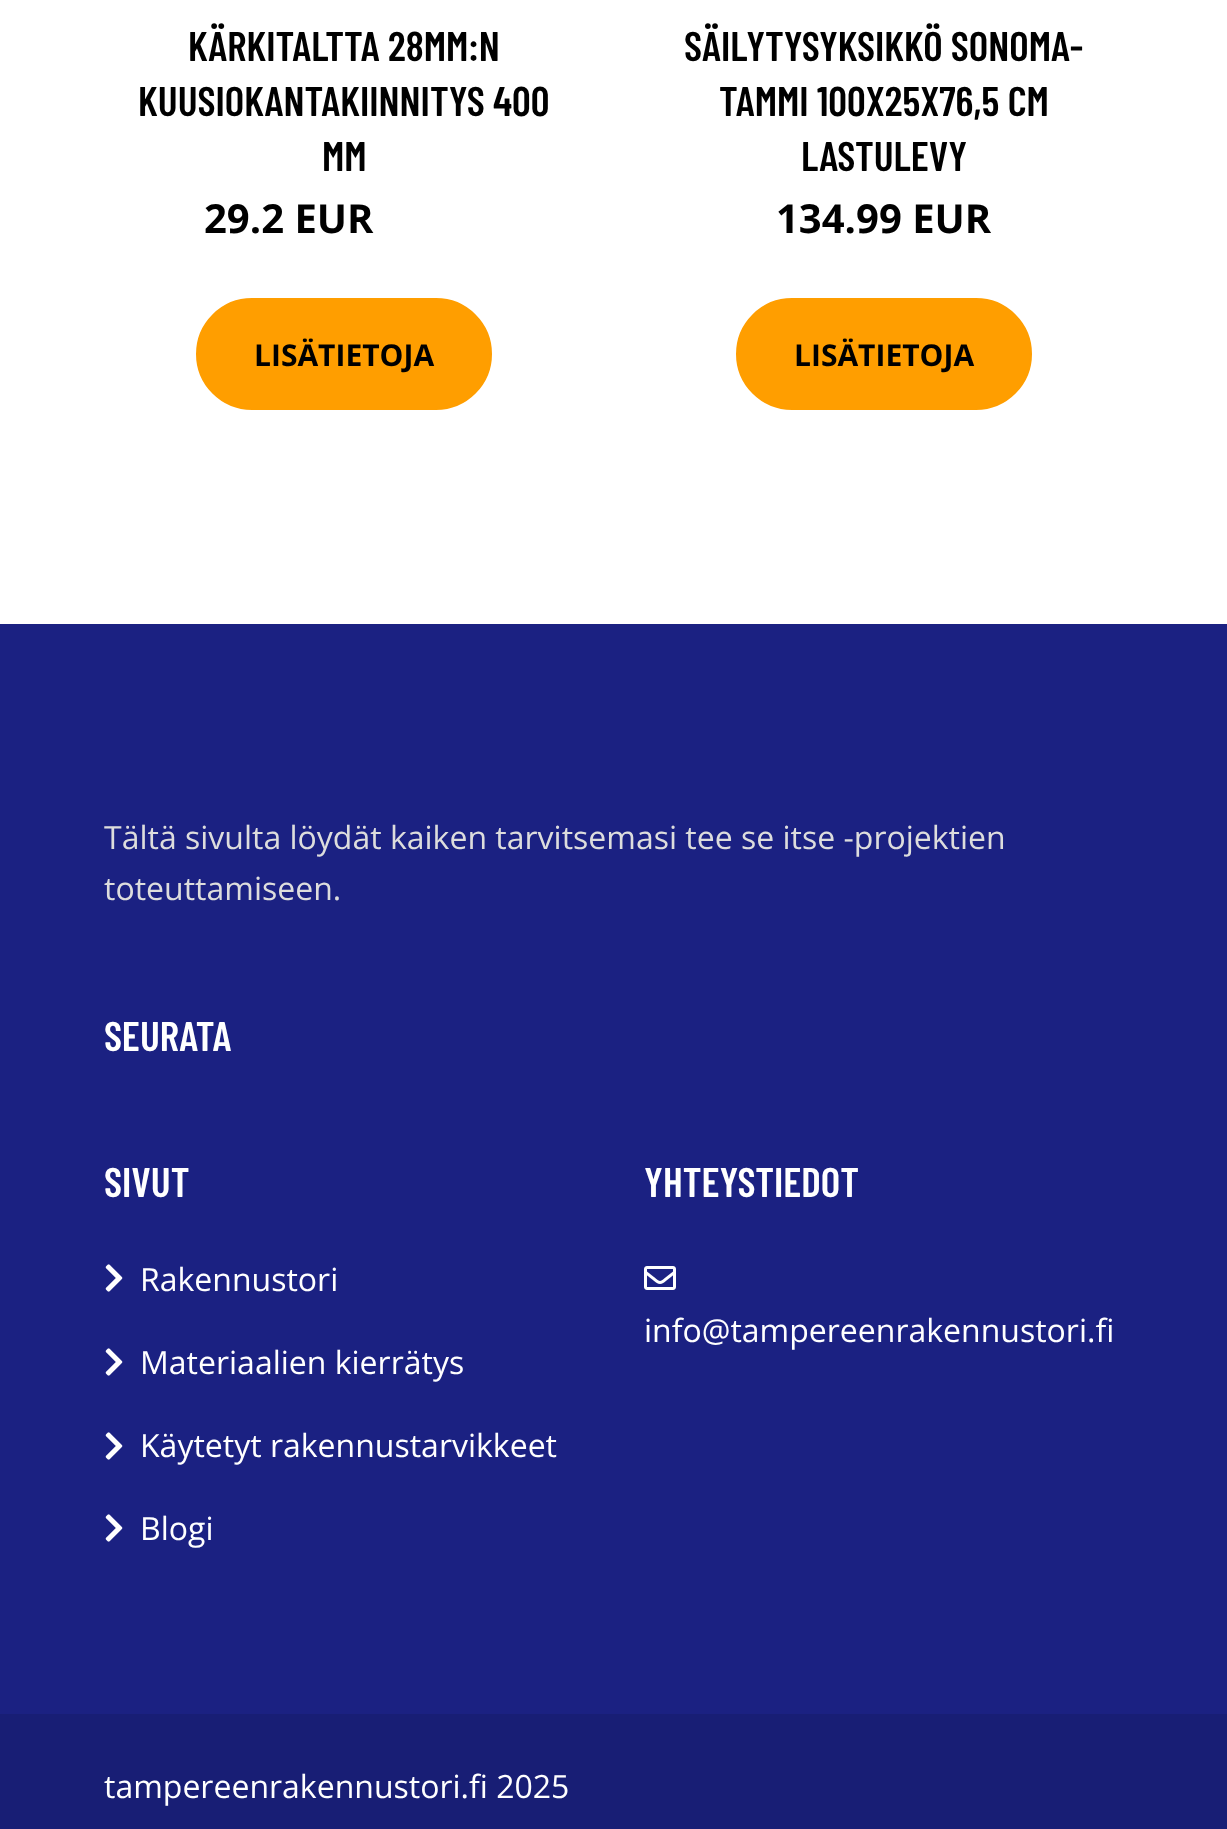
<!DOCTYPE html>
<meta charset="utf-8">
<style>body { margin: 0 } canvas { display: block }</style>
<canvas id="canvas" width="1227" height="1829"></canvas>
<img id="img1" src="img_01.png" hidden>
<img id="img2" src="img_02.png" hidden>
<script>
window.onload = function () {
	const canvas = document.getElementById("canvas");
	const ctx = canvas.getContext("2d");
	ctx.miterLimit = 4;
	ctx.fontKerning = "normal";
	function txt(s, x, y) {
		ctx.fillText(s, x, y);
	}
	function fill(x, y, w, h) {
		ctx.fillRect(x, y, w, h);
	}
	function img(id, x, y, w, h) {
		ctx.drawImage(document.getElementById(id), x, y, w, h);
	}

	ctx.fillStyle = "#FFFFFF";
	fill(0, 0, 1227, 1829);
	ctx.fillStyle = "#FF9E00";
	ctx.beginPath();
	ctx.roundRect(197, 299, 294, 110, 55);
	ctx.fill();
	ctx.strokeStyle = "#FF9E00";
	ctx.lineWidth = 2;
	ctx.stroke();
	ctx.beginPath();
	ctx.roundRect(737, 299, 294, 110, 55);
	ctx.fill();
	ctx.stroke();
	ctx.fillStyle = "#1B2182";
	fill(0, 624, 1227, 1090);
	img("img1", 105, 1264, 18, 28);
	img("img1", 105, 1348, 18, 28);
	img("img1", 105, 1432, 18, 28);
	img("img1", 105, 1514, 18, 28);
	img("img2", 644, 1266, 32, 24);
	ctx.fillStyle = "#181E75";
	fill(0, 1714, 1227, 115);
	ctx.font = "600 41.5px Barlow Condensed";
	ctx.fillStyle = "#000000";
	txt("KÄRKITALTTA 28MM:N", 188, 61);
	txt("KUUSIOKANTAKIINNITYS 400", 138, 116);
	txt("MM", 322, 171);
	ctx.font = "bold 40px Open Sans";
	txt("29.2 EUR", 204, 233);
	ctx.font = "bold 30px Open Sans";
	txt("LISÄTIETOJA", 254, 366);
	ctx.font = "600 41.5px Barlow Condensed";
	txt("SÄILYTYSYKSIKKÖ SONOMA-", 684, 61);
	txt("TAMMI 100X25X76,5 CM", 719, 116);
	txt("LASTULEVY", 801, 171);
	ctx.font = "bold 40px Open Sans";
	txt("134.99 EUR", 776, 233);
	ctx.font = "bold 30px Open Sans";
	txt("LISÄTIETOJA", 794, 366);
	ctx.font = "32px Open Sans";
	ctx.fillStyle = "#DDDDDD";
	txt("Tältä sivulta löydät kaiken tarvitsemasi tee se itse -projektien", 104, 849);
	txt("toteuttamiseen.", 104, 900);
	ctx.font = "600 41.5px Barlow Condensed";
	ctx.fillStyle = "#FFFFFF";
	txt("SEURATA", 104, 1051);
	txt("SIVUT", 104, 1197);
	ctx.font = "32px Open Sans";
	txt("Rakennustori", 140, 1291);
	txt("Materiaalien kierrätys", 140, 1374);
	txt("Käytetyt rakennustarvikkeet", 140, 1457);
	txt("Blogi", 140, 1540);
	ctx.font = "600 41.5px Barlow Condensed";
	txt("YHTEYSTIEDOT", 644, 1197);
	ctx.font = "32px Open Sans";
	txt("info@tampereenrakennustori.fi", 644, 1342);
	txt("tampereenrakennustori.fi 2025", 104, 1798);
};
</script>
